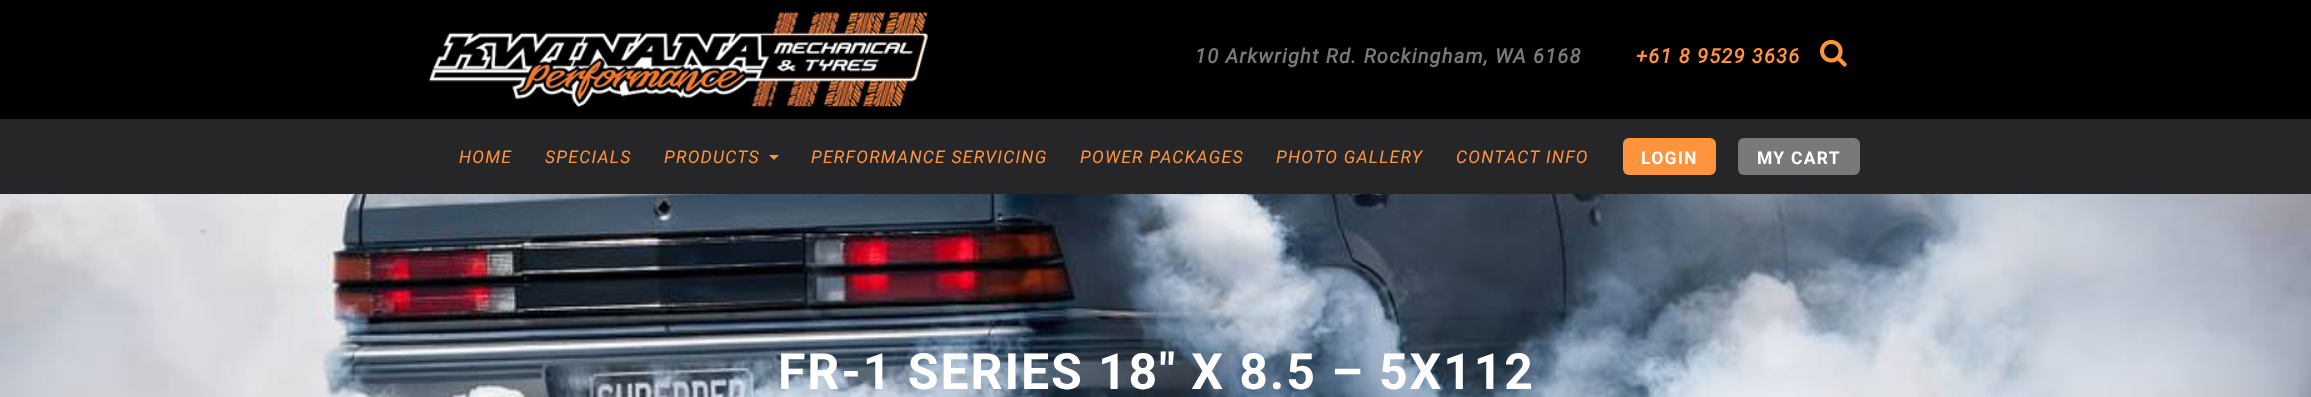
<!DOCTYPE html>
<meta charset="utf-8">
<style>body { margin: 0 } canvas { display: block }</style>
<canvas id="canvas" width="2311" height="397"></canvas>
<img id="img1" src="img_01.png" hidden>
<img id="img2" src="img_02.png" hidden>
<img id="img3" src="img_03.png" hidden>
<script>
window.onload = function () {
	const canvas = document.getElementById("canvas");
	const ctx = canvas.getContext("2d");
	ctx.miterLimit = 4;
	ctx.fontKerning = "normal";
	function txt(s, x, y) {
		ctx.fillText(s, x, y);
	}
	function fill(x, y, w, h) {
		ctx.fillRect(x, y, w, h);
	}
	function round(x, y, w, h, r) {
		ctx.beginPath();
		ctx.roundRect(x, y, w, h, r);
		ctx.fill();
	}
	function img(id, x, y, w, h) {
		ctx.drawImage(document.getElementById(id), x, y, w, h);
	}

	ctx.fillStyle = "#FFFFFF";
	fill(0, 0, 2311, 397);
	ctx.fillStyle = "#000000";
	fill(0, 0, 2311, 119);
	img("img1", 428, 12, 500, 95);
	img("img2", 1820, 39, 27, 28);
	ctx.fillStyle = "#262628";
	fill(0, 119, 2311, 75);
	ctx.fillStyle = "#FF943D";
	ctx.beginPath();
	ctx.moveTo(769, 155);
	ctx.lineTo(779, 155);
	ctx.lineTo(774, 160);
	ctx.closePath();
	ctx.fill();
	round(1623, 138, 93, 37, 6);
	ctx.fillStyle = "#797979";
	round(1738, 138, 122, 37, 6);
	img("img3", 0, 194, 2311, 203);
	ctx.letterSpacing = "1.25px";
	ctx.font = "italic bold 20px Roboto";
	txt("10 Arkwright Rd. Rockingham, WA 6168", 1195, 63);
	ctx.fillStyle = "#FF943D";
	txt("+61 8 9529 3636", 1636, 63);
	ctx.font = "italic 17.5px Roboto";
	txt("HOME", 459, 163);
	txt("SPECIALS", 545, 163);
	txt("PRODUCTS", 664, 163);
	txt("PERFORMANCE SERVICING", 811, 163);
	txt("POWER PACKAGES", 1080, 163);
	txt("PHOTO GALLERY", 1276, 163);
	txt("CONTACT INFO", 1456, 163);
	ctx.font = "bold 17.5px Roboto";
	ctx.fillStyle = "#FFFFFF";
	txt("LOGIN", 1641, 164);
	txt("MY CART", 1757, 164);
	ctx.letterSpacing = "1.9px";
	ctx.font = "bold 50px Roboto";
	txt("FR-1 SERIES 18″ X 8.5 – 5X112", 778, 389);
};
</script>
